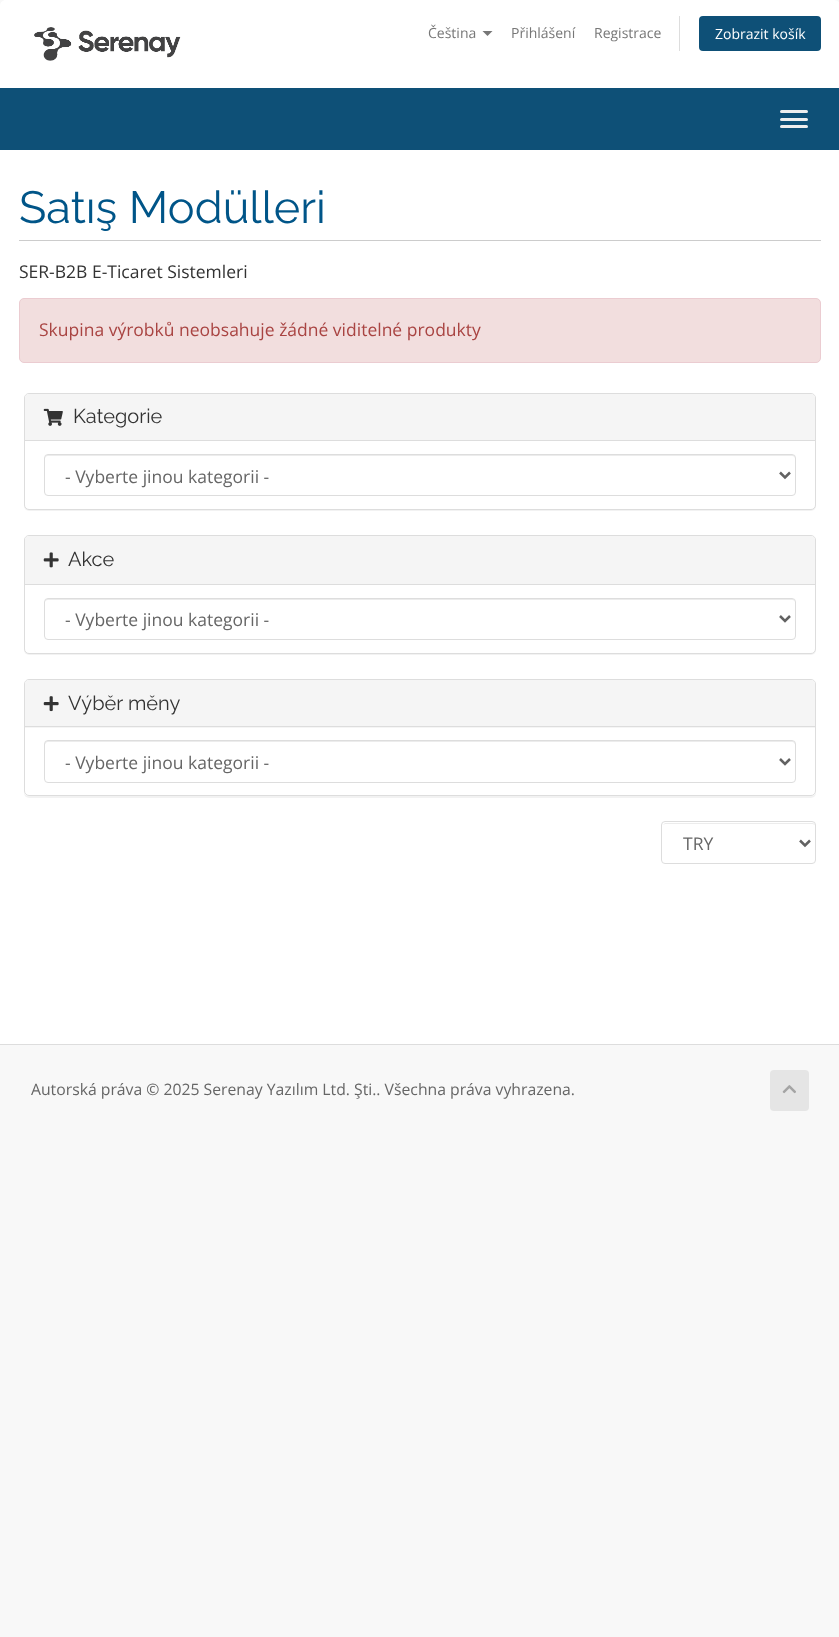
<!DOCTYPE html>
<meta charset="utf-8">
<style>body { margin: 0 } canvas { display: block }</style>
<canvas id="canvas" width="839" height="1637"></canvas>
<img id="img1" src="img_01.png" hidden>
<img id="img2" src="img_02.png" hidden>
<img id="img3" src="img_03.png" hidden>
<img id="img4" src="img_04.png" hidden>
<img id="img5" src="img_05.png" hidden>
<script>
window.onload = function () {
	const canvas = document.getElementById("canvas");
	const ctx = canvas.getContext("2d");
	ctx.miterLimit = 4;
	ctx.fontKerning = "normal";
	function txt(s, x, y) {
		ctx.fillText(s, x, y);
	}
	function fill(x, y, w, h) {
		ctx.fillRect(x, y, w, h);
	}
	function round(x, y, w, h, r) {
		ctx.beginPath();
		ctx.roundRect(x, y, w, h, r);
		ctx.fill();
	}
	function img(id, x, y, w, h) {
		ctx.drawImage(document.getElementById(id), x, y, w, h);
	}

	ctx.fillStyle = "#F8F8F8";
	fill(0, 0, 839, 1637);
	ctx.fillStyle = "#FFFFFF";
	ctx.beginPath();
	ctx.moveTo(6, 0);
	ctx.lineTo(834, 0);
	ctx.bezierCurveTo(837.5, 0, 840, 2.5, 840, 6);
	ctx.lineTo(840, 88);
	ctx.lineTo(0, 88);
	ctx.lineTo(0, 6);
	ctx.bezierCurveTo(0, 2.5, 2.5, 0, 6, 0);
	ctx.closePath();
	ctx.fill();
	img("img1", 34, 27, 147, 34);
	ctx.fillStyle = "#777777";
	ctx.beginPath();
	ctx.moveTo(482.5, 31);
	ctx.lineTo(492.5, 31);
	ctx.lineTo(487.5, 36);
	ctx.closePath();
	ctx.fill();
	ctx.fillStyle = "#DDDDDD";
	fill(679, 16, 1, 35);
	ctx.fillStyle = "#0E5077";
	round(699, 16, 122, 35, 4);
	fill(0, 88, 839, 62);
	ctx.fillStyle = "#EEEEEE";
	round(780, 110, 28, 3, 1.5);
	round(780, 118, 28, 3, 1.5);
	round(780, 125, 28, 3, 1.5);
	ctx.fillStyle = "#FFFFFF";
	fill(0, 150, 839, 894);
	ctx.fillStyle = "#CCCCCC";
	fill(19, 240, 802, 1);
	ctx.fillStyle = "#F2DEDE";
	ctx.beginPath();
	ctx.roundRect(19.5, 298.5, 801, 64, 4.5);
	ctx.fill();
	ctx.strokeStyle = "#EBCCD1";
	ctx.stroke();
	ctx.fillStyle = "rgba(0, 0, 0, 0.05)";
	ctx.filter = "blur(0.5px)";
	ctx.beginPath();
	ctx.roundRect(24, 394, 792, 117, 5);
	ctx.fill();
	ctx.filter = "none";
	ctx.fillStyle = "#FFFFFF";
	ctx.beginPath();
	ctx.roundRect(24.5, 393.5, 791, 116, 4.5);
	ctx.fill();
	ctx.strokeStyle = "#DDDDDD";
	ctx.stroke();
	ctx.fillStyle = "#F5F5F5";
	ctx.beginPath();
	ctx.roundRect(25, 394, 790, 47, [4, 4, 0, 0]);
	ctx.fill();
	ctx.fillStyle = "#DDDDDD";
	fill(25, 440, 790, 1);
	img("img2", 43, 408, 20, 18);
	ctx.fillStyle = "#ECECEC";
	ctx.beginPath();
	ctx.moveTo(48, 456);
	ctx.lineTo(792, 456);
	ctx.bezierCurveTo(794, 456, 795, 457, 795, 459);
	ctx.lineTo(795, 458);
	ctx.bezierCurveTo(795, 456, 794, 455, 792, 455);
	ctx.lineTo(48, 455);
	ctx.bezierCurveTo(46, 455, 45, 456, 45, 458);
	ctx.lineTo(45, 459);
	ctx.bezierCurveTo(45, 457, 46, 456, 48, 456);
	ctx.closePath();
	ctx.fill();
	ctx.beginPath();
	ctx.roundRect(44.5, 454.5, 751, 41, 3.5);
	ctx.stroke();
	ctx.beginPath();
	ctx.moveTo(780, 472.5);
	ctx.lineTo(785, 477.5);
	ctx.lineTo(790, 472.5);
	ctx.strokeStyle = "#626262";
	ctx.lineWidth = 2.5;
	ctx.stroke();
	ctx.fillStyle = "rgba(0, 0, 0, 0.05)";
	ctx.filter = "blur(0.5px)";
	ctx.beginPath();
	ctx.roundRect(24, 536, 792, 119, 5);
	ctx.fill();
	ctx.filter = "none";
	ctx.fillStyle = "#FFFFFF";
	ctx.beginPath();
	ctx.roundRect(24.5, 535.5, 791, 118, 4.5);
	ctx.fill();
	ctx.strokeStyle = "#DDDDDD";
	ctx.lineWidth = 1;
	ctx.stroke();
	ctx.fillStyle = "#F5F5F5";
	ctx.beginPath();
	ctx.roundRect(25, 536, 790, 49, [4, 4, 0, 0]);
	ctx.fill();
	ctx.fillStyle = "#DDDDDD";
	fill(25, 584, 790, 1);
	img("img3", 43, 552, 16, 16);
	ctx.fillStyle = "#ECECEC";
	ctx.beginPath();
	ctx.moveTo(48, 600);
	ctx.lineTo(792, 600);
	ctx.bezierCurveTo(794, 600, 795, 601, 795, 602);
	ctx.bezierCurveTo(795, 600, 794, 599, 792, 599);
	ctx.lineTo(48, 599);
	ctx.bezierCurveTo(46, 599, 45, 600, 45, 602);
	ctx.bezierCurveTo(45, 601, 46, 600, 48, 600);
	ctx.closePath();
	ctx.fill();
	ctx.beginPath();
	ctx.roundRect(44.5, 598.5, 751, 41, 3.5);
	ctx.stroke();
	ctx.beginPath();
	ctx.moveTo(780, 616);
	ctx.lineTo(785, 621);
	ctx.lineTo(790, 616);
	ctx.strokeStyle = "#626262";
	ctx.lineWidth = 2.5;
	ctx.stroke();
	ctx.save();
	ctx.beginPath();
	ctx.moveTo(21, 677);
	ctx.lineTo(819, 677);
	ctx.lineTo(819, 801);
	ctx.lineTo(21, 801);
	ctx.closePath();
	ctx.moveTo(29, 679);
	ctx.lineTo(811, 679);
	ctx.bezierCurveTo(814, 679, 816, 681, 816, 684);
	ctx.lineTo(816, 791);
	ctx.bezierCurveTo(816, 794, 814, 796, 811, 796);
	ctx.lineTo(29, 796);
	ctx.bezierCurveTo(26, 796, 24, 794, 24, 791);
	ctx.lineTo(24, 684);
	ctx.bezierCurveTo(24, 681, 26, 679, 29, 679);
	ctx.closePath();
	ctx.clip("evenodd");
	ctx.fillStyle = "rgba(0, 0, 0, 0.05)";
	ctx.filter = "blur(0.5px)";
	ctx.beginPath();
	ctx.roundRect(24, 680, 792, 118, 5);
	ctx.fill();
	ctx.filter = "none";
	ctx.restore();
	ctx.beginPath();
	ctx.roundRect(24.5, 679.5, 791, 116, 4.5);
	ctx.strokeStyle = "#DDDDDD";
	ctx.lineWidth = 1;
	ctx.stroke();
	ctx.fillStyle = "#F5F5F5";
	ctx.beginPath();
	ctx.roundRect(25, 680, 790, 48, [4, 4, 0, 0]);
	ctx.fill();
	ctx.fillStyle = "#DDDDDD";
	fill(25, 726, 790, 1);
	img("img4", 43, 696, 16, 16);
	ctx.fillStyle = "#ECECEC";
	ctx.beginPath();
	ctx.moveTo(48, 742);
	ctx.lineTo(792, 742);
	ctx.bezierCurveTo(794, 742, 795, 744, 795, 745);
	ctx.lineTo(795, 744);
	ctx.bezierCurveTo(795, 742, 794, 741, 792, 741);
	ctx.lineTo(48, 741);
	ctx.bezierCurveTo(46, 741, 45, 742, 45, 744);
	ctx.lineTo(45, 745);
	ctx.bezierCurveTo(45, 744, 46, 742, 48, 742);
	ctx.closePath();
	ctx.fill();
	ctx.beginPath();
	ctx.roundRect(44.5, 740.5, 751, 42, 3.5);
	ctx.stroke();
	ctx.beginPath();
	ctx.moveTo(780, 759);
	ctx.lineTo(785, 764);
	ctx.lineTo(790, 759);
	ctx.strokeStyle = "#626262";
	ctx.lineWidth = 2.5;
	ctx.stroke();
	ctx.beginPath();
	ctx.moveTo(665, 824);
	ctx.lineTo(812, 824);
	ctx.bezierCurveTo(814, 824, 815, 825, 815, 826);
	ctx.bezierCurveTo(815, 824, 814, 823, 812, 823);
	ctx.lineTo(665, 823);
	ctx.lineTo(663, 825);
	ctx.closePath();
	ctx.fill();
	ctx.beginPath();
	ctx.roundRect(661.5, 821.5, 154, 42, 3.5);
	ctx.strokeStyle = "#DDDDDD";
	ctx.lineWidth = 1;
	ctx.stroke();
	ctx.beginPath();
	ctx.moveTo(800, 840.5);
	ctx.lineTo(805, 845.5);
	ctx.lineTo(810, 840.5);
	ctx.strokeStyle = "#626262";
	ctx.lineWidth = 2.5;
	ctx.stroke();
	ctx.fillStyle = "#DDDDDD";
	fill(0, 1044, 839, 1);
	ctx.fillStyle = "#E5E5E5";
	round(770, 1070, 39, 41, 4);
	img("img5", 782, 1085, 14, 9);
	ctx.font = "14px Open Sans";
	ctx.fillStyle = "#777777";
	txt("Čeština", 428, 38);
	txt("Přihlášení", 511, 38);
	txt("Registrace", 594, 38);
	ctx.fillStyle = "#FFFFFF";
	txt("Zobrazit košík", 715, 39);
	ctx.font = "45px Raleway";
	ctx.fillStyle = "#005588";
	txt("Satış Modülleri", 19, 223);
	ctx.font = "17.5px Open Sans";
	ctx.fillStyle = "#333333";
	txt("SER-B2B E-Ticaret Sistemleri", 19, 278);
	ctx.fillStyle = "#A94442";
	txt("Skupina výrobků neobsahuje žádné viditelné produkty", 39, 336);
	ctx.font = "20px Raleway";
	ctx.fillStyle = "#333333";
	txt("Kategorie", 73, 423);
	ctx.font = "17.5px Open Sans";
	ctx.fillStyle = "#666666";
	txt("- Vyberte jinou kategorii -", 65, 483);
	ctx.font = "20px Raleway";
	ctx.fillStyle = "#333333";
	txt("Akce", 68, 566);
	ctx.font = "17.5px Open Sans";
	ctx.fillStyle = "#666666";
	txt("- Vyberte jinou kategorii -", 65, 626);
	ctx.font = "20px Raleway";
	ctx.fillStyle = "#333333";
	txt("Výběr měny", 68, 710);
	ctx.font = "17.5px Open Sans";
	ctx.fillStyle = "#666666";
	txt("- Vyberte jinou kategorii -", 65, 769);
	txt("TRY", 683, 850);
	ctx.font = "15.75px Open Sans";
	txt("Autorská práva © 2025 Serenay Yazılım Ltd. Şti.. Všechna práva vyhrazena.", 31, 1095);
};
</script>
